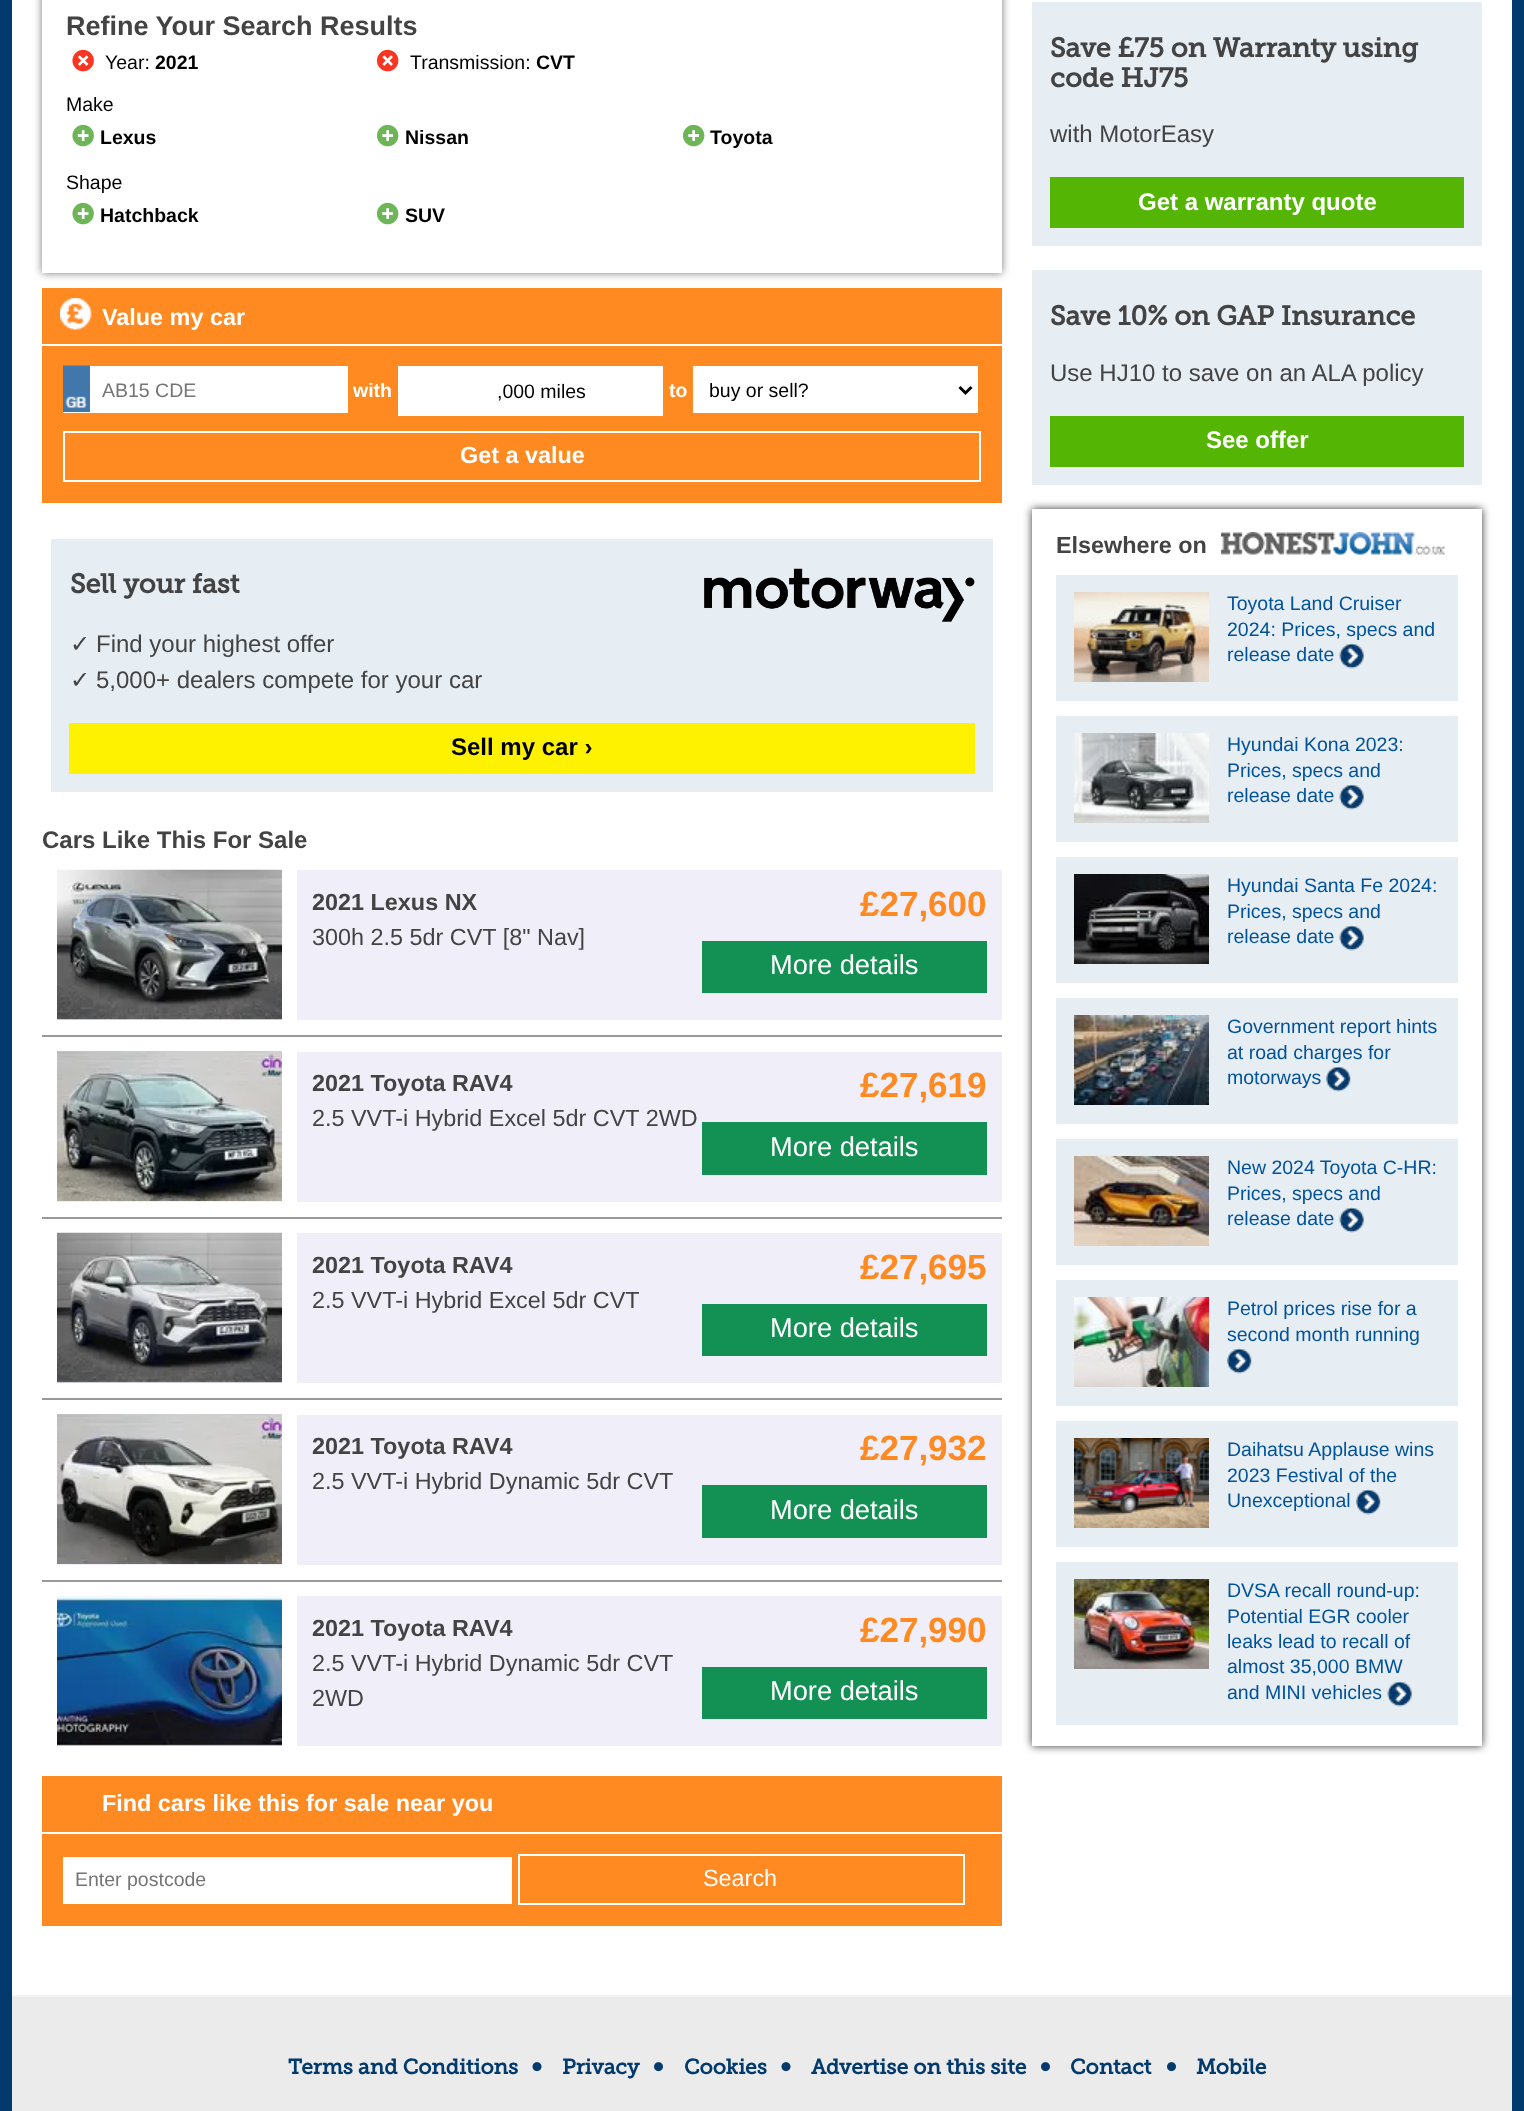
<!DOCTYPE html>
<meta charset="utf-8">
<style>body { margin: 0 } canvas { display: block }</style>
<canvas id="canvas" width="1524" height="2111"></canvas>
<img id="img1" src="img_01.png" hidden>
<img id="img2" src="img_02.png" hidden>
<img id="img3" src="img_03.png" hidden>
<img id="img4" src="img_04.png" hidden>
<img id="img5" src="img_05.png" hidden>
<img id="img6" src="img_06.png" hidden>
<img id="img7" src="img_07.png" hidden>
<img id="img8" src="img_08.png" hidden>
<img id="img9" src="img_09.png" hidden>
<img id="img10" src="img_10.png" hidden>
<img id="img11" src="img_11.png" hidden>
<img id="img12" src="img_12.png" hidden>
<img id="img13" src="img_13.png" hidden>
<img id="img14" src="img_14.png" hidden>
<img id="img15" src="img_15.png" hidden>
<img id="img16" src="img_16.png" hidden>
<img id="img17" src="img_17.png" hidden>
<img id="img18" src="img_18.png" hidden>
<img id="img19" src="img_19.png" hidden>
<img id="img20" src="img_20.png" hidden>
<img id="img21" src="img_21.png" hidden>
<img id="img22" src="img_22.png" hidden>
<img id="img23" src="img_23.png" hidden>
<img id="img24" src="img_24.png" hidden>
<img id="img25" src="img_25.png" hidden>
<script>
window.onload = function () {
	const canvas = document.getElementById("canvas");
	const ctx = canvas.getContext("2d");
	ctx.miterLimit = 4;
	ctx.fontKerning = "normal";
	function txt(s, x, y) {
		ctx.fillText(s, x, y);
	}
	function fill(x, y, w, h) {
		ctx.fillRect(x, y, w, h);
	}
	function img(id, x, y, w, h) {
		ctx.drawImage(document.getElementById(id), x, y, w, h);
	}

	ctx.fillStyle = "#023A6D";
	fill(0, 0, 1524, 2111);
	ctx.fillStyle = "#FFFFFF";
	fill(12, 0, 1500, 1995);
	ctx.save();
	ctx.beginPath();
	ctx.moveTo(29, 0);
	ctx.lineTo(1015, 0);
	ctx.lineTo(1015, 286);
	ctx.lineTo(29, 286);
	ctx.closePath();
	ctx.moveTo(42, -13);
	ctx.lineTo(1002, -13);
	ctx.lineTo(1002, 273);
	ctx.lineTo(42, 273);
	ctx.closePath();
	ctx.clip("evenodd");
	ctx.fillStyle = "#777777";
	ctx.filter = "blur(4px)";
	ctx.beginPath();
	ctx.rect(42, -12, 960, 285);
	ctx.fill();
	ctx.filter = "none";
	ctx.restore();
	img("img1", 72, 49, 22, 23);
	img("img2", 376, 49, 23, 23);
	img("img3", 72, 124, 22, 23);
	img("img4", 376, 124, 23, 23);
	img("img4", 682, 124, 23, 23);
	img("img3", 72, 202, 22, 23);
	img("img4", 376, 202, 23, 23);
	ctx.fillStyle = "#FF8A22";
	fill(42, 288, 960, 215);
	img("img5", 60, 298, 32, 32);
	ctx.fillStyle = "#FFFFFF";
	fill(42, 344, 960, 2);
	fill(63, 366, 285, 47);
	img("img6", 63, 365, 27, 47);
	fill(398, 366, 265, 50);
	fill(693, 366, 285, 47);
	ctx.beginPath();
	ctx.moveTo(959.5, 387);
	ctx.lineTo(965.5, 393);
	ctx.lineTo(971.5, 387);
	ctx.strokeStyle = "#000000";
	ctx.lineWidth = 3;
	ctx.stroke();
	ctx.strokeStyle = "#FFFFFF";
	ctx.lineWidth = 2;
	ctx.strokeRect(64, 432, 916, 49);
	ctx.fillStyle = "#E6EDF3";
	fill(51, 539, 942, 253);
	img("img7", 704, 568, 271, 54);
	ctx.fillStyle = "#FEF200";
	fill(69, 723, 906, 51);
	ctx.fillStyle = "#999999";
	fill(42, 1035, 960, 2);
	ctx.fillStyle = "#F0EEF9";
	fill(57, 870, 945, 150);
	ctx.fillStyle = "#FFFFFF";
	fill(282, 870, 15, 150);
	img("img8", 57, 869, 225, 151);
	ctx.fillStyle = "#139154";
	fill(702, 941, 285, 52);
	ctx.fillStyle = "#999999";
	fill(42, 1217, 960, 2);
	ctx.fillStyle = "#F0EEF9";
	fill(57, 1052, 945, 150);
	ctx.fillStyle = "#FFFFFF";
	fill(282, 1052, 15, 150);
	img("img9", 57, 1051, 225, 150);
	ctx.fillStyle = "#139154";
	fill(702, 1122, 285, 53);
	ctx.fillStyle = "#999999";
	fill(42, 1398, 960, 2);
	ctx.fillStyle = "#F0EEF9";
	fill(57, 1233, 945, 150);
	ctx.fillStyle = "#FFFFFF";
	fill(282, 1233, 15, 150);
	img("img10", 57, 1232, 225, 151);
	ctx.fillStyle = "#139154";
	fill(702, 1304, 285, 52);
	ctx.fillStyle = "#999999";
	fill(42, 1580, 960, 2);
	ctx.fillStyle = "#F0EEF9";
	fill(57, 1415, 945, 150);
	ctx.fillStyle = "#FFFFFF";
	fill(282, 1415, 15, 150);
	img("img11", 57, 1414, 225, 150);
	ctx.fillStyle = "#139154";
	fill(702, 1485, 285, 53);
	ctx.fillStyle = "#F0EEF9";
	fill(57, 1596, 945, 150);
	ctx.fillStyle = "#FFFFFF";
	fill(282, 1596, 15, 150);
	img("img12", 57, 1596, 225, 150);
	ctx.fillStyle = "#139154";
	fill(702, 1667, 285, 52);
	ctx.fillStyle = "#FF8A22";
	fill(42, 1776, 960, 150);
	ctx.fillStyle = "#FFFFFF";
	fill(42, 1832, 960, 2);
	fill(63, 1857, 449, 47);
	ctx.strokeRect(519, 1855, 445, 49);
	ctx.fillStyle = "#E6EDF3";
	fill(1032, 2, 450, 244);
	ctx.fillStyle = "#54B504";
	fill(1050, 177, 414, 51);
	ctx.fillStyle = "#E6EDF3";
	fill(1032, 270, 450, 215);
	ctx.fillStyle = "#54B504";
	fill(1050, 416, 414, 51);
	ctx.save();
	ctx.beginPath();
	ctx.moveTo(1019, 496);
	ctx.lineTo(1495, 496);
	ctx.lineTo(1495, 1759);
	ctx.lineTo(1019, 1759);
	ctx.closePath();
	ctx.moveTo(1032, 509);
	ctx.lineTo(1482, 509);
	ctx.lineTo(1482, 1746);
	ctx.lineTo(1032, 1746);
	ctx.closePath();
	ctx.clip("evenodd");
	ctx.fillStyle = "#333333";
	ctx.filter = "blur(4px)";
	ctx.beginPath();
	ctx.rect(1032, 509, 450, 1237);
	ctx.fill();
	ctx.filter = "none";
	ctx.restore();
	img("img13", 1221, 532, 224, 23);
	ctx.fillStyle = "#E6EDF3";
	fill(1056, 575, 402, 126);
	img("img14", 1074, 592, 135, 90);
	img("img15", 1339, 643, 25, 26);
	fill(1056, 716, 402, 126);
	img("img16", 1074, 733, 135, 90);
	img("img15", 1339, 784, 25, 26);
	fill(1056, 857, 402, 126);
	img("img17", 1074, 874, 135, 90);
	img("img15", 1339, 925, 25, 26);
	fill(1056, 998, 402, 126);
	img("img18", 1074, 1015, 135, 90);
	img("img19", 1326, 1066, 25, 26);
	fill(1056, 1139, 402, 126);
	img("img20", 1074, 1156, 135, 90);
	img("img15", 1339, 1207, 25, 26);
	fill(1056, 1280, 402, 126);
	img("img21", 1074, 1297, 135, 90);
	img("img19", 1227, 1348, 25, 26);
	fill(1056, 1421, 402, 126);
	img("img22", 1074, 1438, 135, 90);
	img("img19", 1356, 1489, 25, 26);
	fill(1056, 1562, 402, 163);
	img("img23", 1074, 1579, 135, 90);
	img("img15", 1387, 1681, 25, 26);
	ctx.fillStyle = "#EBEBEB";
	fill(12, 1997, 1500, 114);
	ctx.fillStyle = "#F3F3F3";
	fill(12, 1995, 1500, 2);
	img("img24", 532, 2062, 10, 10);
	img("img25", 654, 2062, 9, 10);
	img("img24", 781, 2062, 10, 10);
	img("img25", 1041, 2062, 9, 10);
	img("img25", 1167, 2062, 9, 10);
	ctx.font = "bold 27px Liberation Sans";
	ctx.fillStyle = "#434343";
	txt("Refine Your Search Results", 66, 35);
	ctx.font = "19.5px Liberation Sans";
	ctx.fillStyle = "#000000";
	txt("Year:", 105, 69);
	ctx.font = "bold 19.5px Liberation Sans";
	txt("2021", 155, 69);
	ctx.font = "19.5px Liberation Sans";
	txt("Transmission:", 410, 69);
	ctx.font = "bold 19.5px Liberation Sans";
	txt("CVT", 536, 69);
	ctx.font = "19.5px Liberation Sans";
	txt("Make", 66, 111);
	ctx.font = "bold 19.5px Liberation Sans";
	txt("Lexus", 100, 144);
	txt("Nissan", 405, 144);
	txt("Toyota", 710, 144);
	ctx.font = "19.5px Liberation Sans";
	txt("Shape", 66, 189);
	ctx.font = "bold 19.5px Liberation Sans";
	txt("Hatchback", 100, 222);
	txt("SUV", 405, 222);
	ctx.font = "bold 23.4px Liberation Sans";
	ctx.fillStyle = "#FFFFFF";
	txt("Value my car", 102, 325);
	ctx.font = "19.5px Liberation Sans";
	ctx.fillStyle = "#757575";
	txt("AB15 CDE", 102, 397);
	ctx.font = "bold 19.5px Liberation Sans";
	ctx.fillStyle = "#FFFFFF";
	txt("with", 353, 397);
	ctx.font = "19.5px Liberation Sans";
	ctx.fillStyle = "#000000";
	txt(",000 miles", 497, 398);
	ctx.font = "bold 19.5px Liberation Sans";
	ctx.fillStyle = "#FFFFFF";
	txt("to", 669, 397);
	ctx.font = "19.5px Liberation Sans";
	ctx.fillStyle = "#000000";
	txt("buy or sell?", 709, 397);
	ctx.font = "bold 23.4px Liberation Sans";
	ctx.fillStyle = "#FFFFFF";
	txt("Get a value", 460, 463);
	ctx.font = "bold 27px Museo Slab";
	ctx.fillStyle = "#434343";
	txt("Sell your fast", 70, 593);
	ctx.font = "24px DejaVu Sans";
	txt("✓", 70, 652);
	ctx.font = "24px Liberation Sans";
	txt("Find your highest offer", 96, 652);
	ctx.font = "24px DejaVu Sans";
	txt("✓", 70, 688);
	ctx.font = "24px Liberation Sans";
	txt("5,000+ dealers compete for your car", 96, 688);
	ctx.font = "bold 24px Liberation Sans";
	ctx.fillStyle = "#000000";
	txt("Sell my car ›", 451, 755);
	ctx.fillStyle = "#434343";
	txt("Cars Like This For Sale", 42, 848);
	ctx.font = "bold 23.4px Liberation Sans";
	txt("2021 Lexus NX", 312, 910);
	ctx.font = "bold 35px Liberation Sans";
	ctx.fillStyle = "#FF8A22";
	txt("£27,600", 860, 916);
	ctx.font = "27.25px Liberation Sans";
	ctx.fillStyle = "#FFFFFF";
	txt("More details", 770, 974);
	ctx.font = "23.4px Liberation Sans";
	ctx.fillStyle = "#434343";
	txt("300h 2.5 5dr CVT [8\" Nav]", 312, 945);
	ctx.font = "bold 23.4px Liberation Sans";
	txt("2021 Toyota RAV4", 312, 1091);
	ctx.font = "bold 35px Liberation Sans";
	ctx.fillStyle = "#FF8A22";
	txt("£27,619", 860, 1097);
	ctx.font = "27.25px Liberation Sans";
	ctx.fillStyle = "#FFFFFF";
	txt("More details", 770, 1156);
	ctx.font = "23.4px Liberation Sans";
	ctx.fillStyle = "#434343";
	txt("2.5 VVT-i Hybrid Excel 5dr CVT 2WD", 312, 1126);
	ctx.font = "bold 23.4px Liberation Sans";
	txt("2021 Toyota RAV4", 312, 1273);
	ctx.font = "bold 35px Liberation Sans";
	ctx.fillStyle = "#FF8A22";
	txt("£27,695", 860, 1279);
	ctx.font = "27.25px Liberation Sans";
	ctx.fillStyle = "#FFFFFF";
	txt("More details", 770, 1337);
	ctx.font = "23.4px Liberation Sans";
	ctx.fillStyle = "#434343";
	txt("2.5 VVT-i Hybrid Excel 5dr CVT", 312, 1308);
	ctx.font = "bold 23.4px Liberation Sans";
	txt("2021 Toyota RAV4", 312, 1454);
	ctx.font = "bold 35px Liberation Sans";
	ctx.fillStyle = "#FF8A22";
	txt("£27,932", 860, 1460);
	ctx.font = "27.25px Liberation Sans";
	ctx.fillStyle = "#FFFFFF";
	txt("More details", 770, 1519);
	ctx.font = "23.4px Liberation Sans";
	ctx.fillStyle = "#434343";
	txt("2.5 VVT-i Hybrid Dynamic 5dr CVT", 312, 1489);
	ctx.font = "bold 23.4px Liberation Sans";
	txt("2021 Toyota RAV4", 312, 1636);
	ctx.font = "bold 35px Liberation Sans";
	ctx.fillStyle = "#FF8A22";
	txt("£27,990", 860, 1642);
	ctx.font = "27.25px Liberation Sans";
	ctx.fillStyle = "#FFFFFF";
	txt("More details", 770, 1700);
	ctx.font = "23.4px Liberation Sans";
	ctx.fillStyle = "#434343";
	txt("2.5 VVT-i Hybrid Dynamic 5dr CVT", 312, 1671);
	txt("2WD", 312, 1706);
	ctx.font = "bold 23.4px Liberation Sans";
	ctx.fillStyle = "#FFFFFF";
	txt("Find cars like this for sale near you", 102, 1811);
	ctx.font = "19.5px Liberation Sans";
	ctx.fillStyle = "#757575";
	txt("Enter postcode", 75, 1886);
	ctx.font = "23.4px Liberation Sans";
	ctx.fillStyle = "#FFFFFF";
	txt("Search", 703, 1886);
	ctx.font = "bold 27px Museo Slab";
	ctx.fillStyle = "#434343";
	txt("Save £75 on Warranty using", 1050, 57);
	txt("code HJ75", 1050, 87);
	ctx.font = "24px Liberation Sans";
	txt("with MotorEasy", 1050, 142);
	ctx.font = "bold 24px Liberation Sans";
	ctx.fillStyle = "#FFFFFF";
	txt("Get a warranty quote", 1138, 210);
	ctx.font = "bold 27px Museo Slab";
	ctx.fillStyle = "#434343";
	txt("Save 10% on GAP Insurance", 1050, 325);
	ctx.font = "24px Liberation Sans";
	txt("Use HJ10 to save on an ALA policy", 1050, 381);
	ctx.font = "bold 24px Liberation Sans";
	ctx.fillStyle = "#FFFFFF";
	txt("See offer", 1206, 448);
	ctx.font = "bold 23.4px Liberation Sans";
	ctx.fillStyle = "#434343";
	txt("Elsewhere on", 1056, 553);
	ctx.font = "19.5px Liberation Sans";
	ctx.fillStyle = "#00529B";
	txt("Toyota Land Cruiser", 1227, 610);
	txt("2024: Prices, specs and", 1227, 636);
	txt("release date", 1227, 661);
	txt("Hyundai Kona 2023:", 1227, 751);
	txt("Prices, specs and", 1227, 777);
	txt("release date", 1227, 802);
	txt("Hyundai Santa Fe 2024:", 1227, 892);
	txt("Prices, specs and", 1227, 918);
	txt("release date", 1227, 943);
	txt("Government report hints", 1227, 1033);
	txt("at road charges for", 1227, 1059);
	txt("motorways", 1227, 1084);
	txt("New 2024 Toyota C-HR:", 1227, 1174);
	txt("Prices, specs and", 1227, 1200);
	txt("release date", 1227, 1225);
	txt("Petrol prices rise for a", 1227, 1315);
	txt("second month running", 1227, 1341);
	txt("Daihatsu Applause wins", 1227, 1456);
	txt("2023 Festival of the", 1227, 1482);
	txt("Unexceptional", 1227, 1507);
	txt("DVSA recall round-up:", 1227, 1597);
	txt("Potential EGR cooler", 1227, 1623);
	txt("leaks lead to recall of", 1227, 1648);
	txt("almost 35,000 BMW", 1227, 1673);
	txt("and MINI vehicles", 1227, 1699);
	ctx.font = "bold 21px Museo Slab";
	ctx.fillStyle = "#023A6D";
	txt("Terms and Conditions", 288, 2074);
	txt("Privacy", 562, 2074);
	txt("Cookies", 684, 2074);
	txt("Advertise on this site", 811, 2074);
	txt("Contact", 1070, 2074);
	txt("Mobile", 1196, 2074);
};
</script>
